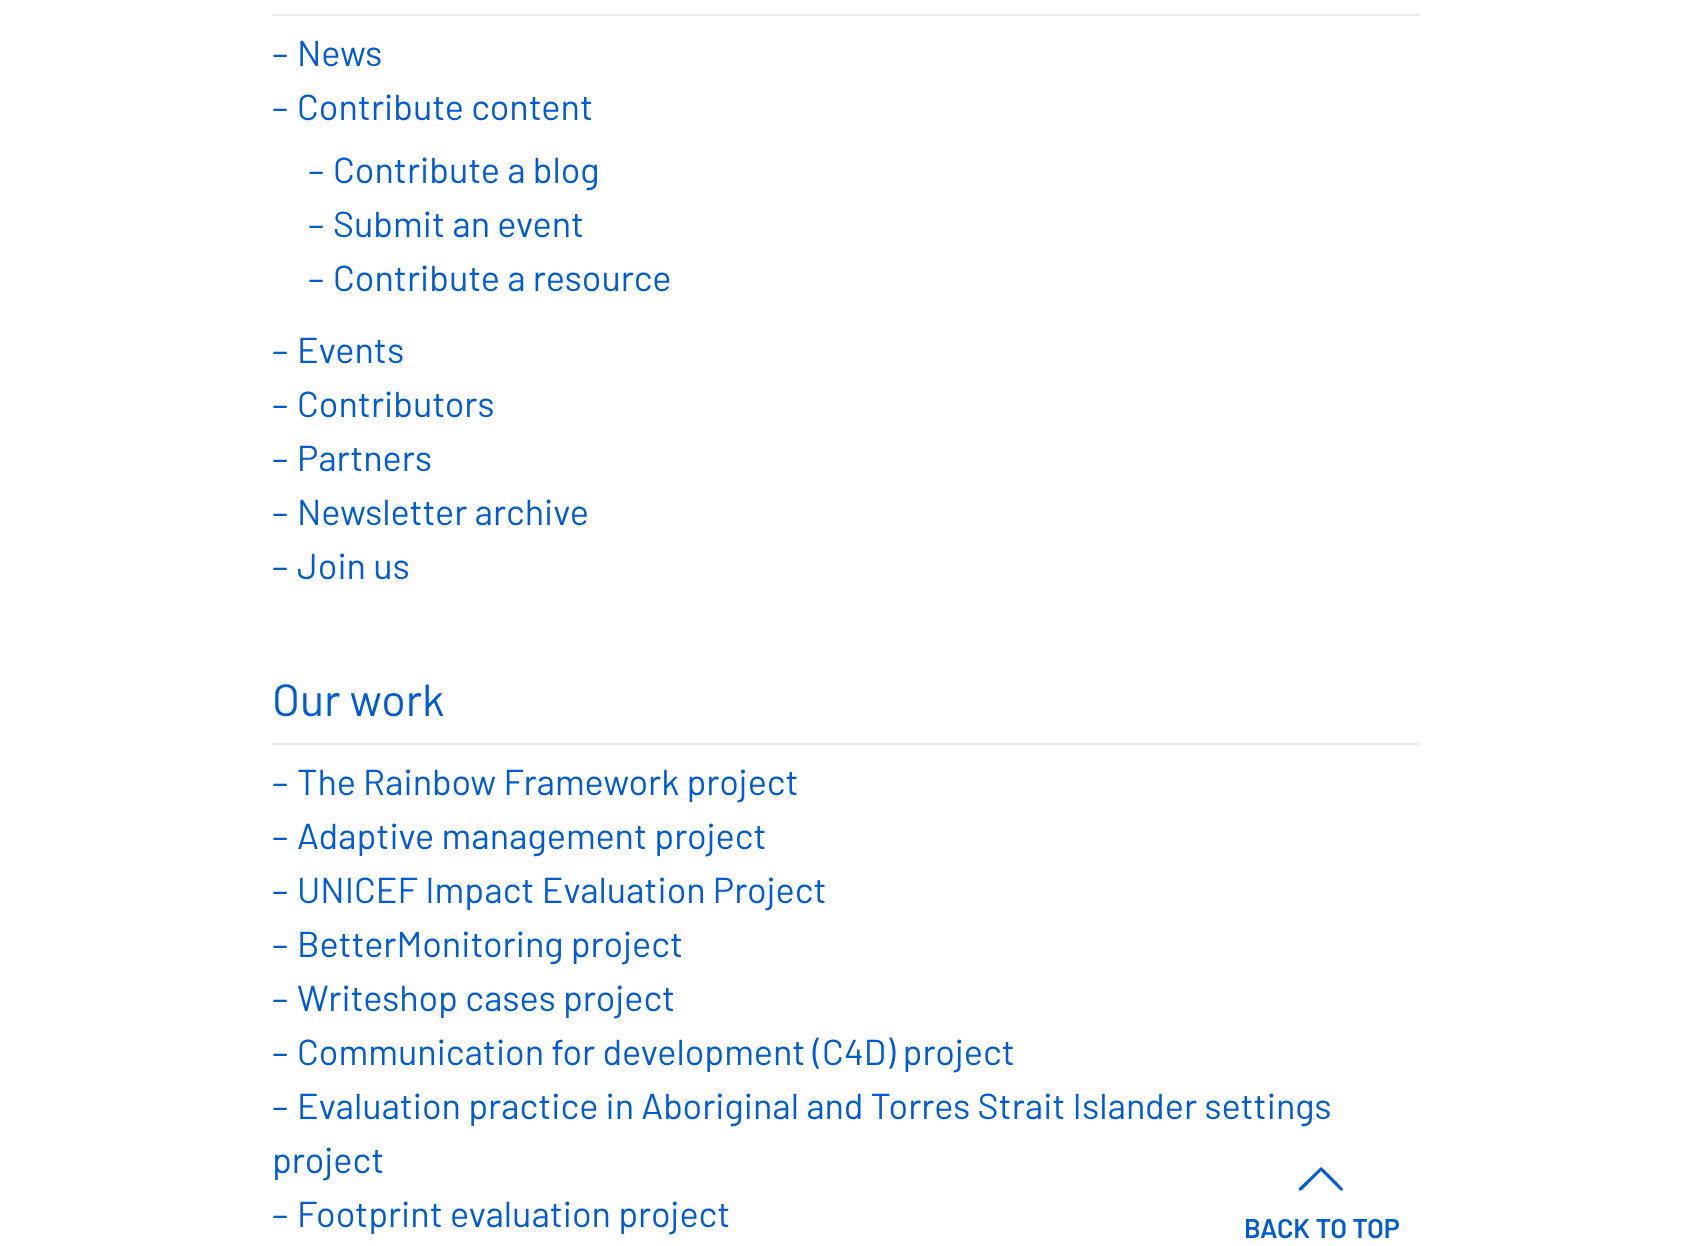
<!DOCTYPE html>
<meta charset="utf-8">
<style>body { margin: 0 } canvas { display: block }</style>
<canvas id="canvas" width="1691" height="1246"></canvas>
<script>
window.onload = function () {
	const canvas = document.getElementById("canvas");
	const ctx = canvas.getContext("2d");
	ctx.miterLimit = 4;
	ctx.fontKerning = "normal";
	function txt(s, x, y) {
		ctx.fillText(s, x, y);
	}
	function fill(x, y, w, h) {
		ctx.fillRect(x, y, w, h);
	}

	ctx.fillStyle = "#FFFFFF";
	fill(0, 0, 1691, 1246);
	ctx.fillStyle = "#E9ECEF";
	fill(272, 14, 1148, 2);
	fill(272, 743, 1148, 2);
	ctx.fillStyle = "#015BD7";
	ctx.beginPath();
	ctx.moveTo(1320, 1168);
	ctx.lineTo(1321, 1167);
	ctx.bezierCurveTo(1322, 1167, 1343, 1188, 1343, 1189);
	ctx.bezierCurveTo(1343, 1191, 1341, 1191, 1340, 1190);
	ctx.lineTo(1321, 1171);
	ctx.lineTo(1302, 1190);
	ctx.bezierCurveTo(1301, 1191, 1300, 1191, 1299, 1190);
	ctx.bezierCurveTo(1299, 1190, 1299, 1189, 1299, 1188);
	ctx.closePath();
	ctx.fill("evenodd");
	ctx.font = "36px Barlow";
	txt("–", 272, 66);
	txt("News", 297, 66);
	txt("–", 272, 120);
	txt("Contribute content", 297, 120);
	txt("–", 308, 183);
	txt("Contribute a blog", 333, 183);
	txt("–", 308, 237);
	txt("Submit an event", 333, 237);
	txt("–", 308, 291);
	txt("Contribute a resource", 333, 291);
	txt("–", 272, 363);
	txt("Events", 297, 363);
	txt("–", 272, 417);
	txt("Contributors", 297, 417);
	txt("–", 272, 471);
	txt("Partners", 297, 471);
	txt("–", 272, 525);
	txt("Newsletter archive", 297, 525);
	txt("–", 272, 579);
	txt("Join us", 297, 579);
	ctx.font = "45px Barlow";
	txt("Our work", 272, 716);
	ctx.font = "36px Barlow";
	txt("–", 272, 795);
	txt("The Rainbow Framework project", 297, 795);
	txt("–", 272, 849);
	txt("Adaptive management project", 297, 849);
	txt("–", 272, 903);
	txt("UNICEF Impact Evaluation Project", 297, 903);
	txt("–", 272, 957);
	txt("BetterMonitoring project", 297, 957);
	txt("–", 272, 1011);
	txt("Writeshop cases project", 297, 1011);
	txt("–", 272, 1065);
	txt("Communication for development (C4D) project", 297, 1065);
	txt("–", 272, 1119);
	txt("Evaluation practice in Aboriginal and Torres Strait Islander settings", 297, 1119);
	txt("project", 272, 1173);
	txt("–", 272, 1227);
	txt("Footprint evaluation project", 297, 1227);
	ctx.font = "600 27px Barlow";
	txt("BACK TO TOP", 1244, 1238);
};
</script>
